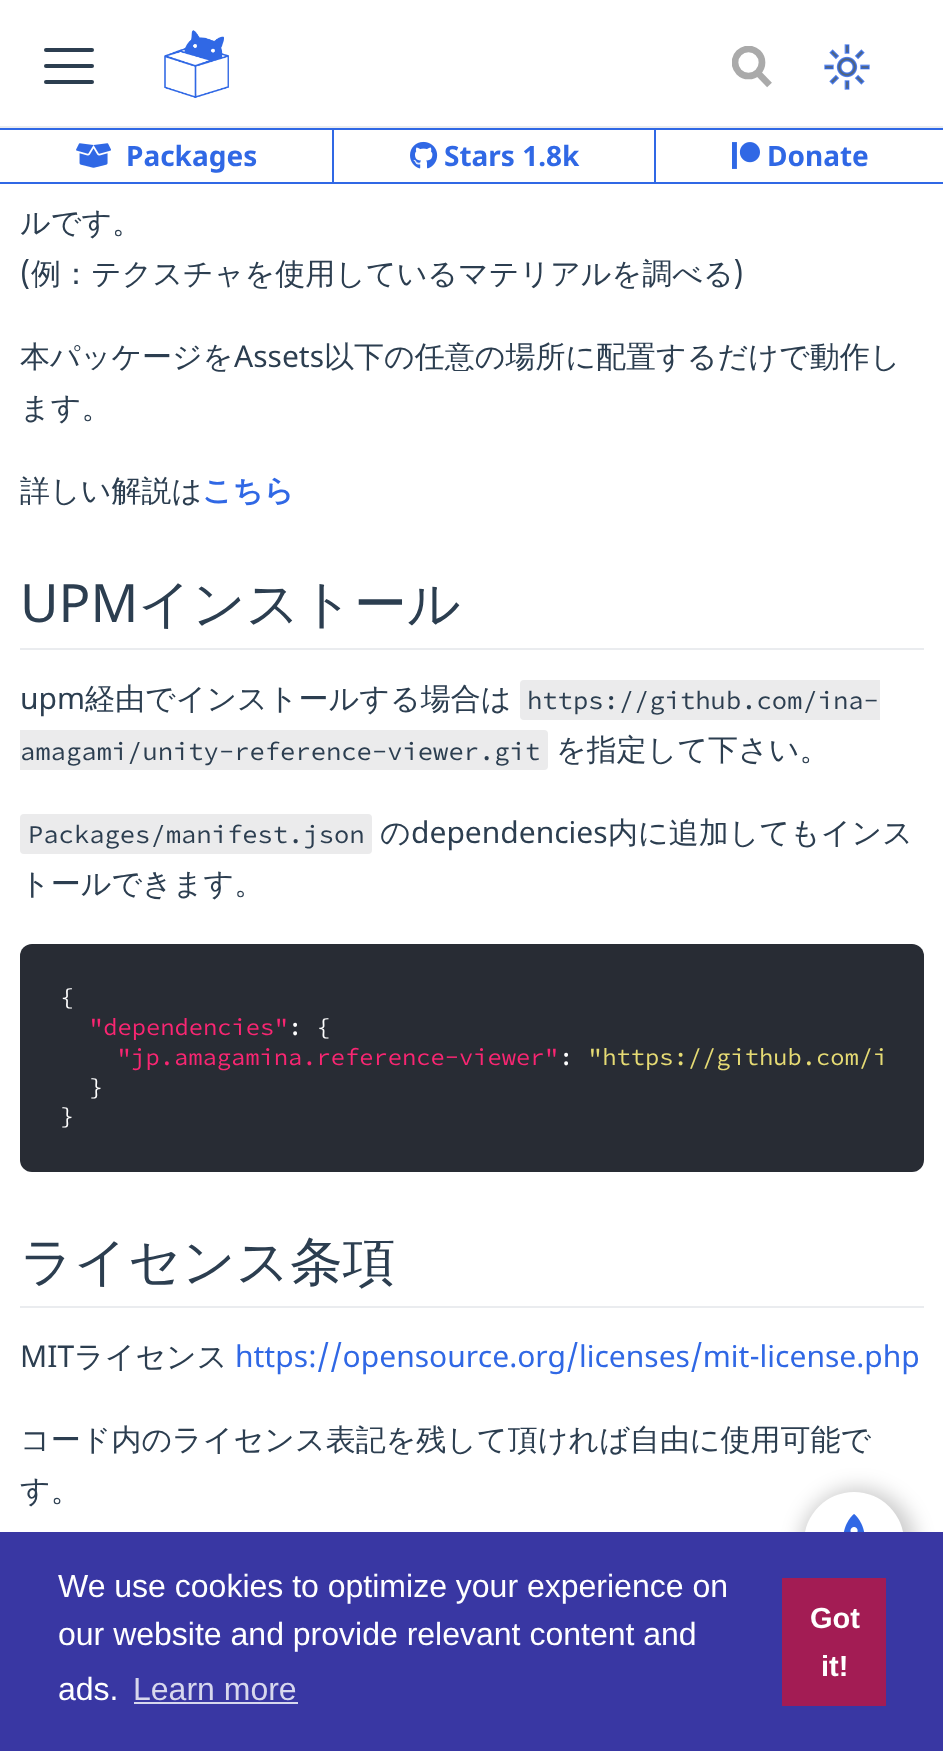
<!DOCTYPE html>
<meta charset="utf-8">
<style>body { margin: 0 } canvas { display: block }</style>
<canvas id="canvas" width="943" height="1751"></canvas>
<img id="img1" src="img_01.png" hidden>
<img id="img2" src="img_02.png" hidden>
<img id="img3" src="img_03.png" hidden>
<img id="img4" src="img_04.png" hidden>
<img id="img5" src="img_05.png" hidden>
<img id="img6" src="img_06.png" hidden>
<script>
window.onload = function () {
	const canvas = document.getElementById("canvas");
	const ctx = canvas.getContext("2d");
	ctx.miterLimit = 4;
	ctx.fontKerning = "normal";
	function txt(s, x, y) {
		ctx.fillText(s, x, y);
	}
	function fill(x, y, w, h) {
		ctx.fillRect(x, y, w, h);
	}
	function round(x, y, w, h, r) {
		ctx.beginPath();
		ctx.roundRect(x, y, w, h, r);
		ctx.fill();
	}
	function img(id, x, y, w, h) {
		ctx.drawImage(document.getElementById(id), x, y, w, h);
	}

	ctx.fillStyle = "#FFFFFF";
	fill(0, 0, 943, 1751);
	ctx.fillStyle = "#EAECEF";
	fill(0, 126, 943, 2);
	ctx.fillStyle = "#2C3E50";
	round(44, 48, 50, 4, 2);
	round(44, 64, 50, 4, 2);
	round(44, 80, 50, 4, 2);
	img("img1", 164, 30, 65, 69);
	ctx.beginPath();
	ctx.moveTo(769.5, 85);
	ctx.lineTo(756.5, 71.5);
	ctx.strokeStyle = "#AAAAAA";
	ctx.lineWidth = 6.7;
	ctx.stroke();
	ctx.save();
	ctx.beginPath();
	ctx.rect(732, 46, 40, 44);
	ctx.clip();
	ctx.beginPath();
	ctx.arc(748.5, 62.5, 13.5, 0, Math.PI * 2);
	ctx.stroke();
	ctx.restore();
	img("img2", 824, 44, 46, 46);
	ctx.fillStyle = "#3068E5";
	fill(0, 128, 334, 2);
	fill(0, 182, 334, 2);
	img("img3", 76, 143, 35, 25);
	ctx.strokeStyle = "#3068E5";
	ctx.lineWidth = 2;
	ctx.strokeRect(333, 129, 322, 54);
	img("img4", 410, 141, 28, 28);
	fill(654, 128, 289, 2);
	fill(654, 182, 289, 2);
	img("img5", 732, 142, 28, 27);
	ctx.fillStyle = "#EAECEF";
	fill(20, 648, 904, 2);
	ctx.fillStyle = "#EBEBEC";
	ctx.beginPath();
	ctx.roundRect(520, 680, 360, 40, [4, 0, 0, 4]);
	ctx.fill();
	ctx.beginPath();
	ctx.roundRect(20, 730, 528, 40, [0, 4, 4, 0]);
	ctx.fill();
	round(20, 814, 352, 40, 4);
	ctx.fillStyle = "#282C34";
	round(20, 944, 904, 228, 12);
	ctx.fillStyle = "#EAECEF";
	fill(20, 1306, 904, 2);
	ctx.fillStyle = "rgba(0, 0, 0, 0.2)";
	ctx.filter = "blur(10px)";
	ctx.beginPath();
	ctx.roundRect(800, 1488, 116, 116, 58);
	ctx.fill();
	ctx.filter = "none";
	ctx.fillStyle = "#FFFFFF";
	ctx.beginPath();
	ctx.arc(854, 1542, 50, 0, Math.PI * 2);
	ctx.fill();
	img("img6", 843, 1514, 22, 18);
	ctx.fillStyle = "#3937A3";
	fill(0, 1532, 943, 219);
	ctx.fillStyle = "#D7D7ED";
	fill(134, 1702, 164, 2);
	ctx.fillStyle = "#A31C54";
	fill(782, 1578, 104, 128);
	ctx.font = "bold 28px Noto Sans";
	ctx.fillStyle = "#3068E5";
	txt("Packages", 126, 166);
	txt("Stars 1.8k", 444, 166);
	txt("Donate", 767, 166);
	ctx.font = "500 30px WenQuanYi Zen Hei";
	ctx.fillStyle = "#2C3E50";
	txt("ルです。", 20, 233);
	ctx.font = "30px Noto Sans";
	txt("(", 20, 284);
	ctx.font = "500 30px WenQuanYi Zen Hei";
	txt("例：テクスチャを使用しているマテリアルを調べる", 31, 284);
	ctx.font = "30px Noto Sans";
	txt(")", 733, 284);
	ctx.font = "500 30px WenQuanYi Zen Hei";
	txt("本パッケージを", 20, 367);
	ctx.font = "30px Noto Sans";
	txt("Assets", 234, 367);
	ctx.font = "500 30px WenQuanYi Zen Hei";
	txt("以下の任意の場所に配置するだけで動作し", 324, 367);
	txt("ます。", 20, 418);
	txt("詳しい解説は", 20, 501);
	ctx.font = "bold 30px WenQuanYi Zen Hei";
	ctx.fillStyle = "#3068E5";
	txt("こちら", 202, 501);
	ctx.font = "52.75px Noto Sans";
	ctx.fillStyle = "#2C3E50";
	txt("UPM", 20, 622);
	ctx.font = "500 52.75px WenQuanYi Zen Hei";
	txt("インストール", 138, 622);
	ctx.font = "30px Noto Sans";
	txt("upm", 20, 709);
	ctx.font = "500 30px WenQuanYi Zen Hei";
	txt("経由でインストールする場合は", 85, 709);
	ctx.font = "25.5px Source Code Pro";
	txt("https://github.com/ina-", 527, 709);
	txt("amagami/unity-reference-viewer.git", 20, 760);
	ctx.font = "500 30px WenQuanYi Zen Hei";
	txt("を指定して下さい。", 556, 760);
	ctx.font = "25.5px Source Code Pro";
	txt("Packages/manifest.json", 28, 843);
	ctx.font = "500 30px WenQuanYi Zen Hei";
	txt("の", 380, 843);
	ctx.font = "30px Noto Sans";
	txt("dependencies", 411, 843);
	ctx.font = "500 30px WenQuanYi Zen Hei";
	txt("内に追加してもインス", 608, 843);
	txt("トールできます。", 20, 894);
	ctx.font = "23.75px Source Code Pro";
	ctx.fillStyle = "#FFFFFF";
	txt("{", 60, 1005);
	ctx.fillStyle = "#F92672";
	txt("\"dependencies\"", 89, 1035);
	ctx.fillStyle = "#FFFFFF";
	txt(": {", 288, 1035);
	ctx.fillStyle = "#F92672";
	txt("\"jp.amagamina.reference-viewer\"", 117, 1065);
	ctx.fillStyle = "#FFFFFF";
	txt(":", 559, 1065);
	ctx.fillStyle = "#E6DB74";
	txt("\"https://github.com/i", 588, 1065);
	ctx.fillStyle = "#FFFFFF";
	txt("}", 89, 1095);
	txt("}", 60, 1124);
	ctx.font = "500 52.75px WenQuanYi Zen Hei";
	ctx.fillStyle = "#2C3E50";
	txt("ライセンス条項", 20, 1280);
	ctx.font = "30px Noto Sans";
	txt("MIT", 20, 1367);
	ctx.font = "500 30px WenQuanYi Zen Hei";
	txt("ライセンス", 74, 1367);
	ctx.font = "30px Noto Sans";
	ctx.fillStyle = "#3068E5";
	txt("https://opensource.org/licenses/mit-license.php", 235, 1367);
	ctx.font = "500 30px WenQuanYi Zen Hei";
	ctx.fillStyle = "#2C3E50";
	txt("コード内のライセンス表記を残して頂ければ自由に使用可能で", 20, 1450);
	txt("す。", 20, 1501);
	ctx.font = "32px Liberation Sans";
	ctx.fillStyle = "#FFFFFF";
	txt("We use cookies to optimize your experience on", 58, 1597);
	txt("our website and provide relevant content and", 58, 1645);
	txt("ads.", 58, 1700);
	ctx.fillStyle = "#D7D7ED";
	txt("Learn more", 133, 1700);
	ctx.font = "bold 29px Liberation Sans";
	ctx.fillStyle = "#FFFFFF";
	txt("Got", 810, 1628);
	txt("it!", 821, 1676);
};
</script>
